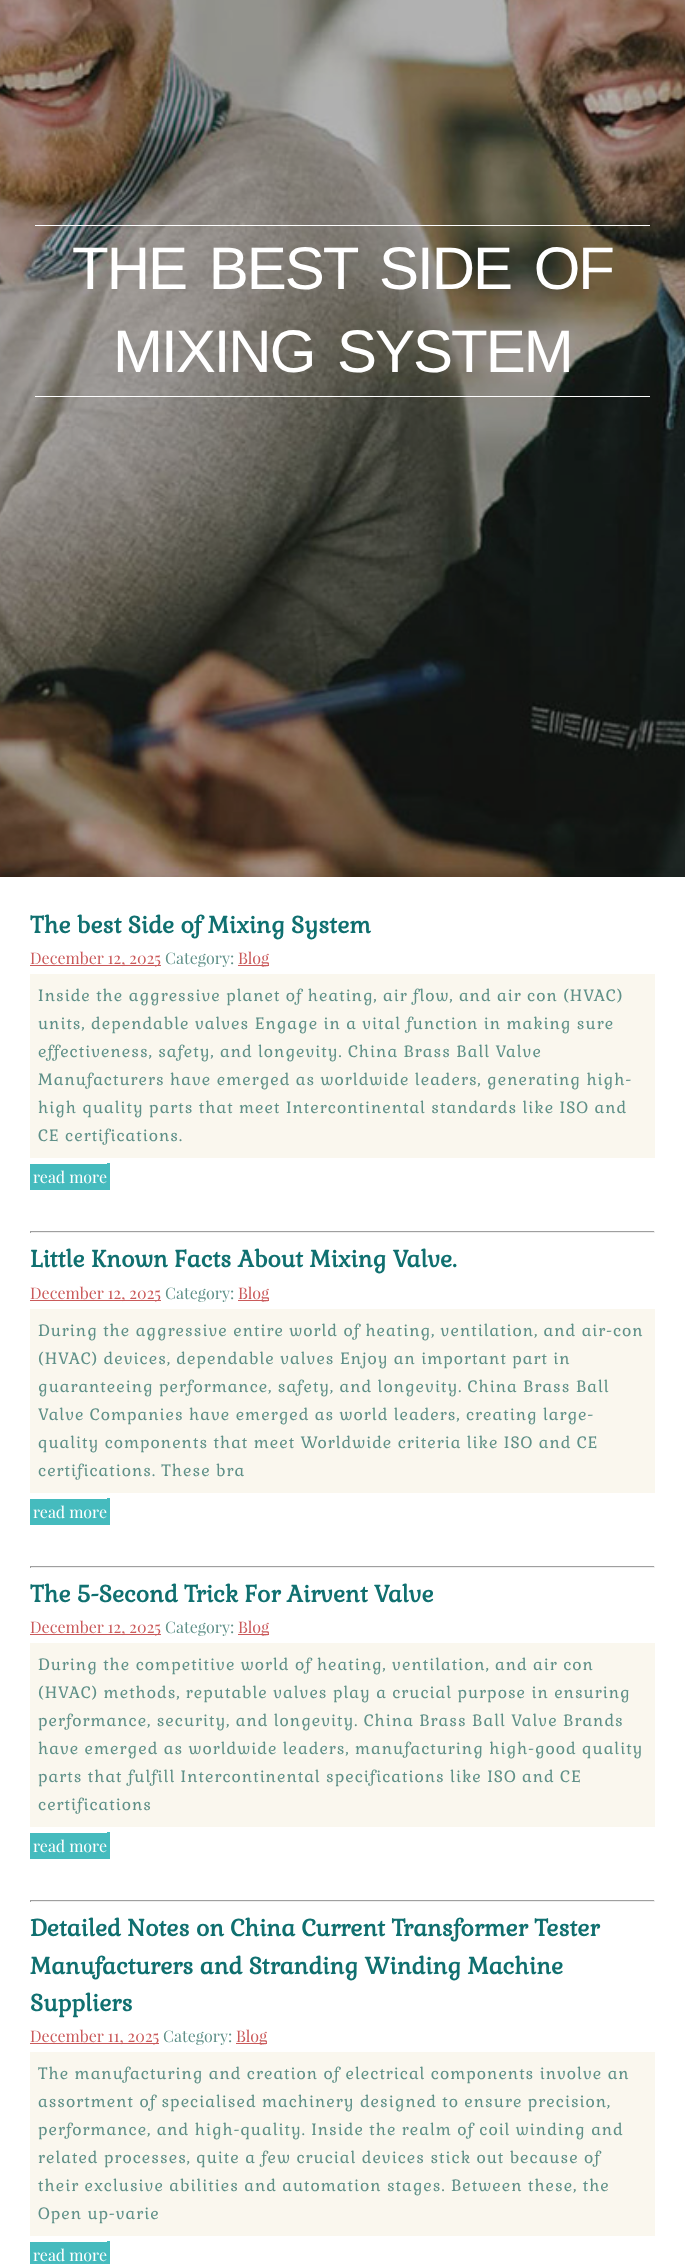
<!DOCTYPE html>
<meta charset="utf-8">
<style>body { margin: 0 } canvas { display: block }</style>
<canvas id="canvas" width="685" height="2264"></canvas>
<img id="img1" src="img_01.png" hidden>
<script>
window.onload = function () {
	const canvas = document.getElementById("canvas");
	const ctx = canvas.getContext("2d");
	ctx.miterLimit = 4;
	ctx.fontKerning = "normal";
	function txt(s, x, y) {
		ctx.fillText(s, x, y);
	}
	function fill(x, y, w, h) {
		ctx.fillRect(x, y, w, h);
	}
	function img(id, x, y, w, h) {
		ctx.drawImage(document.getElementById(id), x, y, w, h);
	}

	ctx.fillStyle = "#FFFFFF";
	fill(0, 0, 685, 2264);
	img("img1", 0, 0, 685, 877);
	fill(35, 225, 615, 1);
	fill(35, 396, 615, 1);
	ctx.fillStyle = "rgba(0, 0, 0, 0.1)";
	ctx.filter = "blur(5px)";
	ctx.beginPath();
	ctx.rect(0, 877, 685, 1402);
	ctx.fill();
	ctx.filter = "none";
	ctx.fillStyle = "#FFFFFF";
	fill(0, 877, 685, 1387);
	ctx.fillStyle = "#CA5A5B";
	fill(30, 965, 131, 1);
	fill(238, 965, 31, 1);
	ctx.fillStyle = "#FAF7EE";
	fill(30, 974, 625, 184);
	ctx.fillStyle = "#45BBBE";
	fill(30, 1164, 77, 26);
	fill(107, 1163, 3, 27);
	ctx.fillStyle = "#9F9F9F";
	fill(30, 1231, 625, 1);
	ctx.fillStyle = "#EEEEEE";
	fill(654, 1231, 1, 2);
	fill(30, 1232, 625, 1);
	ctx.fillStyle = "#9F9F9F";
	fill(30, 1231, 1, 2);
	ctx.fillStyle = "#CA5A5B";
	fill(30, 1300, 131, 1);
	fill(238, 1300, 31, 1);
	ctx.fillStyle = "#FAF7EE";
	fill(30, 1309, 625, 184);
	ctx.fillStyle = "#45BBBE";
	fill(30, 1499, 77, 26);
	fill(107, 1498, 3, 27);
	ctx.fillStyle = "#9F9F9F";
	fill(30, 1566, 625, 1);
	ctx.fillStyle = "#EEEEEE";
	fill(654, 1566, 1, 2);
	fill(30, 1567, 625, 1);
	ctx.fillStyle = "#9F9F9F";
	fill(30, 1566, 1, 2);
	ctx.fillStyle = "#CA5A5B";
	fill(30, 1634, 131, 1);
	fill(238, 1634, 31, 1);
	ctx.fillStyle = "#FAF7EE";
	fill(30, 1643, 625, 184);
	ctx.fillStyle = "#45BBBE";
	fill(30, 1833, 77, 26);
	fill(107, 1832, 3, 27);
	ctx.fillStyle = "#9F9F9F";
	fill(30, 1900, 625, 1);
	ctx.fillStyle = "#EEEEEE";
	fill(654, 1900, 1, 2);
	fill(30, 1901, 625, 1);
	ctx.fillStyle = "#9F9F9F";
	fill(30, 1900, 1, 2);
	ctx.fillStyle = "#CA5A5B";
	fill(30, 2043, 129, 1);
	fill(236, 2043, 31, 1);
	ctx.fillStyle = "#FAF7EE";
	fill(30, 2052, 625, 184);
	ctx.fillStyle = "#45BBBE";
	fill(30, 2242, 77, 22);
	fill(107, 2241, 3, 23);
	ctx.letterSpacing = "-2px";
	ctx.wordSpacing = "8px";
	ctx.font = "60px Liberation Sans";
	ctx.fillStyle = "#FFFFFF";
	txt("THE BEST SIDE OF", 72, 289);
	txt("MIXING SYSTEM", 113, 372);
	ctx.letterSpacing = "0px";
	ctx.wordSpacing = "0px";
	ctx.font = "bold 23px Gabriela";
	ctx.fillStyle = "#107070";
	txt("The best Side of Mixing System", 30, 933);
	ctx.font = "16px Playfair Display";
	ctx.fillStyle = "#CA5A5B";
	txt("December 12, 2025", 30, 964);
	ctx.fillStyle = "#5F9088";
	txt("Category:", 165, 964);
	ctx.fillStyle = "#CA5A5B";
	txt("Blog", 238, 964);
	ctx.letterSpacing = "1px";
	ctx.font = "16px Gabriela";
	ctx.fillStyle = "#5F9088";
	txt("Inside the aggressive planet of heating, air flow, and air con (HVAC)", 38, 1001);
	txt("units, dependable valves Engage in a vital function in making sure", 38, 1029);
	txt("effectiveness, safety, and longevity. China Brass Ball Valve", 38, 1057);
	txt("Manufacturers have emerged as worldwide leaders, generating high-", 38, 1085);
	txt("high quality parts that meet Intercontinental standards like ISO and", 38, 1113);
	txt("CE certifications.", 38, 1141);
	ctx.letterSpacing = "0px";
	ctx.font = "16px Playfair Display";
	ctx.fillStyle = "#FFFFFF";
	txt("read more", 33, 1183);
	ctx.font = "bold 23px Gabriela";
	ctx.fillStyle = "#107070";
	txt("Little Known Facts About Mixing Valve.", 30, 1267);
	ctx.font = "16px Playfair Display";
	ctx.fillStyle = "#CA5A5B";
	txt("December 12, 2025", 30, 1299);
	ctx.fillStyle = "#5F9088";
	txt("Category:", 165, 1299);
	ctx.fillStyle = "#CA5A5B";
	txt("Blog", 238, 1299);
	ctx.letterSpacing = "1px";
	ctx.font = "16px Gabriela";
	ctx.fillStyle = "#5F9088";
	txt("During the aggressive entire world of heating, ventilation, and air-con", 38, 1336);
	txt("(HVAC) devices, dependable valves Enjoy an important part in", 38, 1364);
	txt("guaranteeing performance, safety, and longevity. China Brass Ball", 38, 1392);
	txt("Valve Companies have emerged as world leaders, creating large-", 38, 1420);
	txt("quality components that meet Worldwide criteria like ISO and CE", 38, 1448);
	txt("certifications. These bra", 38, 1476);
	ctx.letterSpacing = "0px";
	ctx.font = "16px Playfair Display";
	ctx.fillStyle = "#FFFFFF";
	txt("read more", 33, 1518);
	ctx.font = "bold 23px Gabriela";
	ctx.fillStyle = "#107070";
	txt("The 5-Second Trick For Airvent Valve", 30, 1602);
	ctx.font = "16px Playfair Display";
	ctx.fillStyle = "#CA5A5B";
	txt("December 12, 2025", 30, 1633);
	ctx.fillStyle = "#5F9088";
	txt("Category:", 165, 1633);
	ctx.fillStyle = "#CA5A5B";
	txt("Blog", 238, 1633);
	ctx.letterSpacing = "1px";
	ctx.font = "16px Gabriela";
	ctx.fillStyle = "#5F9088";
	txt("During the competitive world of heating, ventilation, and air con", 38, 1670);
	txt("(HVAC) methods, reputable valves play a crucial purpose in ensuring", 38, 1698);
	txt("performance, security, and longevity. China Brass Ball Valve Brands", 38, 1726);
	txt("have emerged as worldwide leaders, manufacturing high-good quality", 38, 1754);
	txt("parts that fulfill Intercontinental specifications like ISO and CE", 38, 1782);
	txt("certifications", 38, 1810);
	ctx.letterSpacing = "0px";
	ctx.font = "16px Playfair Display";
	ctx.fillStyle = "#FFFFFF";
	txt("read more", 33, 1852);
	ctx.font = "bold 23px Gabriela";
	ctx.fillStyle = "#107070";
	txt("Detailed Notes on China Current Transformer Tester", 30, 1936);
	txt("Manufacturers and Stranding Winding Machine", 30, 1974);
	txt("Suppliers", 30, 2011);
	ctx.font = "16px Playfair Display";
	ctx.fillStyle = "#CA5A5B";
	txt("December 11, 2025", 30, 2042);
	ctx.fillStyle = "#5F9088";
	txt("Category:", 163, 2042);
	ctx.fillStyle = "#CA5A5B";
	txt("Blog", 236, 2042);
	ctx.letterSpacing = "1px";
	ctx.font = "16px Gabriela";
	ctx.fillStyle = "#5F9088";
	txt("The manufacturing and creation of electrical components involve an", 38, 2079);
	txt("assortment of specialised machinery designed to ensure precision,", 38, 2107);
	txt("performance, and high-quality. Inside the realm of coil winding and", 38, 2135);
	txt("related processes, quite a few crucial devices stick out because of", 38, 2163);
	txt("their exclusive abilities and automation stages. Between these, the", 38, 2191);
	txt("Open up-varie", 38, 2219);
	ctx.letterSpacing = "0px";
	ctx.font = "16px Playfair Display";
	ctx.fillStyle = "#FFFFFF";
	txt("read more", 33, 2261);
};
</script>
